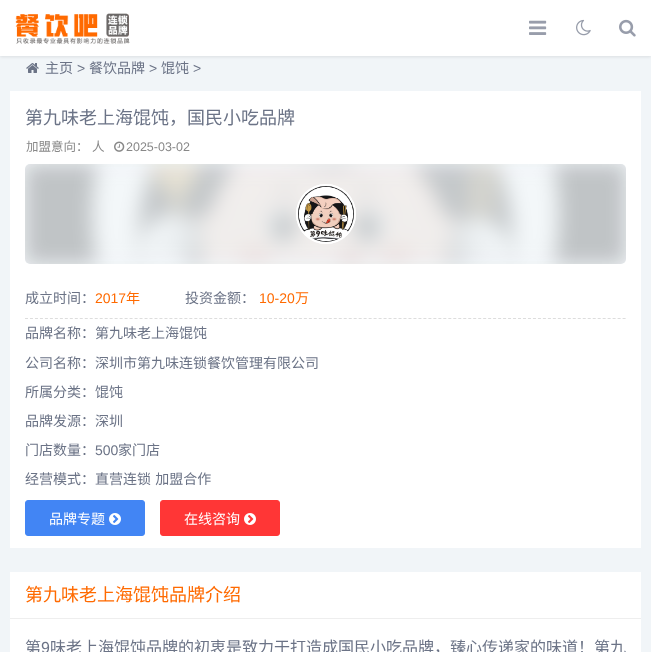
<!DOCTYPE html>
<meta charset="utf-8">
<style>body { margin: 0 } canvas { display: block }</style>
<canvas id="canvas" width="651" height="652"></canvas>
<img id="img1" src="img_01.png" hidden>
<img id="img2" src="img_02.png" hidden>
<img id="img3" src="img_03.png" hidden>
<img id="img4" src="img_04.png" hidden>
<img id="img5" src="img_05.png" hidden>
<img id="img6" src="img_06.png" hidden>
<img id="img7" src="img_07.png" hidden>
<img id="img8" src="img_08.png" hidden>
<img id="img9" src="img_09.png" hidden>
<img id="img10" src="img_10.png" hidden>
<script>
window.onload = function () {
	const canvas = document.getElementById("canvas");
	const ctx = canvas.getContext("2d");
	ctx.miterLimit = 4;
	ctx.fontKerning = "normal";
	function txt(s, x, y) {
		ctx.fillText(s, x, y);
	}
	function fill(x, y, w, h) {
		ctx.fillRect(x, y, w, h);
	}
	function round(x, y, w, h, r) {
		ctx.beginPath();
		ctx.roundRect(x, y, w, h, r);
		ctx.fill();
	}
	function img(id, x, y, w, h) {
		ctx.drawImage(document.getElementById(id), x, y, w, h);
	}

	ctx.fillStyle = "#F1F5F8";
	fill(0, 0, 651, 652);
	ctx.fillStyle = "rgba(26, 26, 26, 0.1)";
	ctx.filter = "blur(1.5px)";
	ctx.beginPath();
	ctx.rect(0, 1, 651, 56);
	ctx.fill();
	ctx.filter = "none";
	ctx.fillStyle = "#FFFFFF";
	fill(0, 0, 651, 56);
	img("img1", 15, 13, 115, 31);
	img("img2", 529, 20, 18, 15);
	img("img3", 576, 19, 15, 17);
	img("img4", 619, 19, 17, 18);
	img("img5", 26, 63, 13, 10);
	fill(10, 91, 631, 457);
	img("img6", 114, 141, 11, 11);
	ctx.fillStyle = "#F1F5F8";
	round(25, 164, 601, 100, 5);
	img("img7", 25, 164, 601, 100);
	ctx.fillStyle = "#FFFFFF";
	ctx.beginPath();
	ctx.arc(326, 214, 30, 0, Math.PI * 2);
	ctx.fill();
	ctx.beginPath();
	ctx.arc(326, 214, 29, 0, Math.PI * 2);
	ctx.strokeStyle = "rgba(255, 255, 255, 0.9)";
	ctx.lineWidth = 2;
	ctx.stroke();
	img("img8", 298, 186, 56, 56);
	ctx.beginPath();
	ctx.moveTo(25, 318.5);
	ctx.lineTo(626, 318.5);
	ctx.strokeStyle = "#DDDDDD";
	ctx.lineWidth = 1;
	ctx.setLineDash([3, 1.98]);
	ctx.stroke();
	ctx.fillStyle = "#4285F4";
	ctx.beginPath();
	ctx.roundRect(25.5, 500.5, 119, 35, 2.5);
	ctx.fill();
	ctx.strokeStyle = "#4285F4";
	ctx.setLineDash([]);
	ctx.stroke();
	img("img9", 109, 513, 12, 12);
	ctx.fillStyle = "#FF3636";
	ctx.beginPath();
	ctx.roundRect(160.5, 500.5, 119, 35, 2.5);
	ctx.fill();
	ctx.strokeStyle = "#FF3636";
	ctx.stroke();
	img("img10", 244, 513, 12, 12);
	ctx.fillStyle = "#FFFFFF";
	fill(10, 572, 631, 80);
	ctx.fillStyle = "#EEEEEE";
	fill(10, 618, 631, 1);
	ctx.font = "14px Noto Sans CJK SC";
	ctx.fillStyle = "#6B7386";
	txt("主页", 45, 73);
	ctx.font = "14px Liberation Sans";
	txt(">", 77, 73);
	ctx.font = "14px Noto Sans CJK SC";
	txt("餐饮品牌", 89, 73);
	ctx.font = "14px Liberation Sans";
	txt(">", 149, 73);
	ctx.font = "14px Noto Sans CJK SC";
	txt("馄饨", 161, 73);
	ctx.font = "14px Liberation Sans";
	txt(">", 193, 73);
	ctx.font = "18px Noto Sans CJK SC";
	txt("第九味老上海馄饨，国民小吃品牌", 25, 124);
	ctx.font = "12.5px Noto Sans CJK SC";
	ctx.fillStyle = "#888888";
	txt("加盟意向：", 26, 151);
	txt("人", 92, 151);
	ctx.font = "12.5px Liberation Sans";
	txt("2025-03-02", 126, 151);
	ctx.font = "14px Noto Sans CJK SC";
	ctx.fillStyle = "#6B7386";
	txt("成立时间：", 25, 303);
	ctx.font = "14px Liberation Sans";
	ctx.fillStyle = "#FF6A00";
	txt("2017", 95, 303);
	ctx.font = "14px Noto Sans CJK SC";
	txt("年", 126, 303);
	ctx.fillStyle = "#6B7386";
	txt("投资金额：", 185, 303);
	ctx.font = "14px Liberation Sans";
	ctx.fillStyle = "#FF6A00";
	txt("10-20", 259, 303);
	ctx.font = "14px Noto Sans CJK SC";
	txt("万", 295, 303);
	ctx.fillStyle = "#6B7386";
	txt("品牌名称：第九味老上海馄饨", 25, 338);
	txt("公司名称：深圳市第九味连锁餐饮管理有限公司", 25, 368);
	txt("所属分类：馄饨", 25, 397);
	txt("品牌发源：深圳", 25, 426);
	txt("门店数量：", 25, 455);
	ctx.font = "14px Liberation Sans";
	txt("500", 95, 455);
	ctx.font = "14px Noto Sans CJK SC";
	txt("家门店", 118, 455);
	ctx.wordSpacing = "1px";
	txt("经营模式：直营连锁 加盟合作", 25, 484);
	ctx.wordSpacing = "0px";
	ctx.fillStyle = "#FFFFFF";
	txt("品牌专题", 49, 524);
	txt("在线咨询", 184, 524);
	ctx.font = "18px Noto Sans CJK SC";
	ctx.fillStyle = "#FF6A00";
	txt("第九味老上海馄饨品牌介绍", 25, 601);
	ctx.font = "16px Noto Sans CJK SC";
	ctx.fillStyle = "#6B7386";
	txt("第", 25, 653);
	ctx.font = "16px Liberation Sans";
	txt("9", 41, 653);
	ctx.font = "16px Noto Sans CJK SC";
	txt("味老上海馄饨品牌的初衷是致力于打造成国民小吃品牌，臻心传递家的味道！第九", 50, 653);
};
</script>
